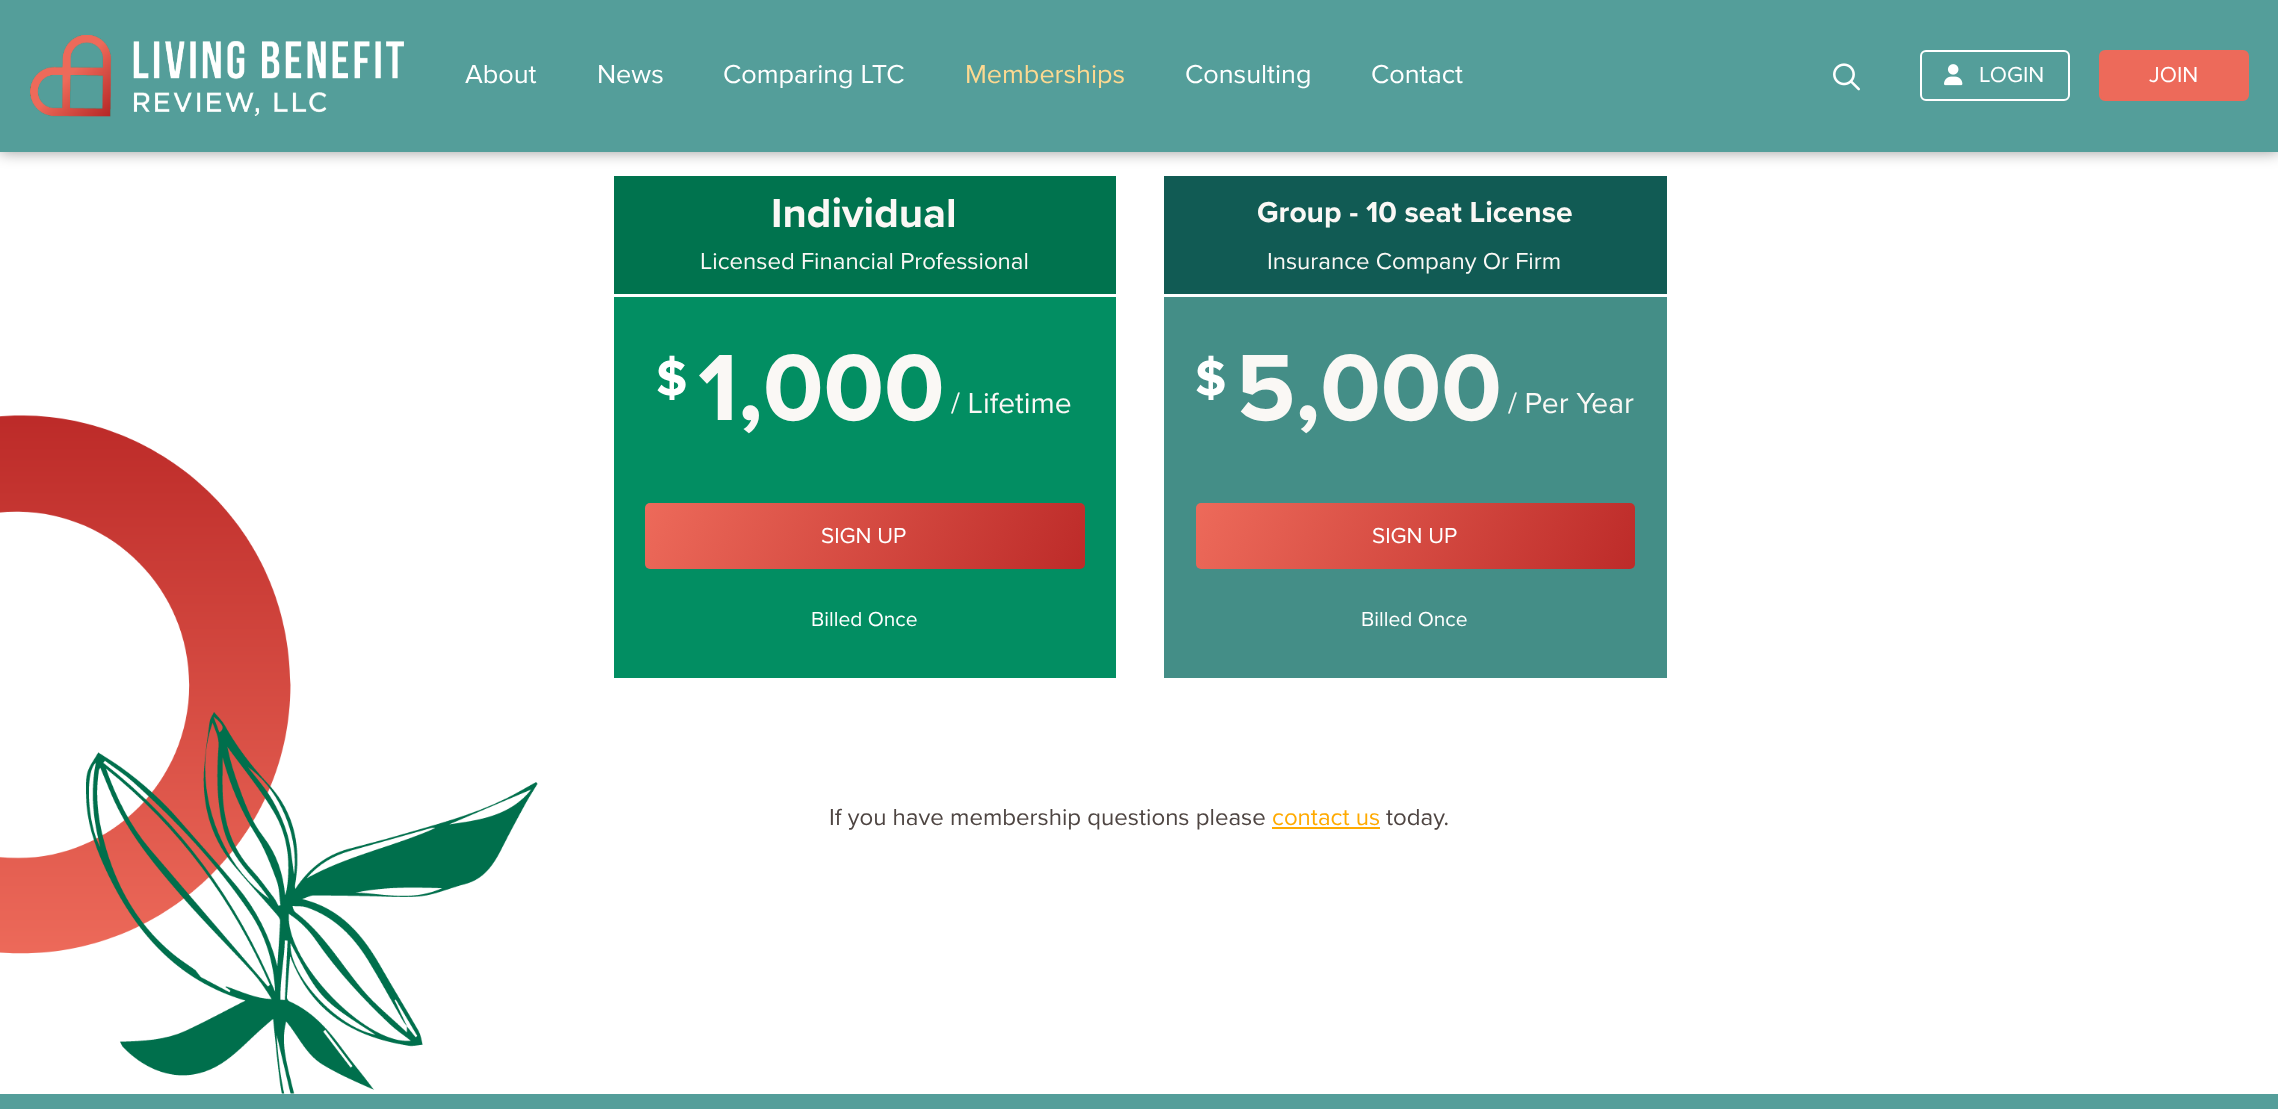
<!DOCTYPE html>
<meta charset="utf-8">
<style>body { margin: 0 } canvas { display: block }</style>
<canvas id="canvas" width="2278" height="1109"></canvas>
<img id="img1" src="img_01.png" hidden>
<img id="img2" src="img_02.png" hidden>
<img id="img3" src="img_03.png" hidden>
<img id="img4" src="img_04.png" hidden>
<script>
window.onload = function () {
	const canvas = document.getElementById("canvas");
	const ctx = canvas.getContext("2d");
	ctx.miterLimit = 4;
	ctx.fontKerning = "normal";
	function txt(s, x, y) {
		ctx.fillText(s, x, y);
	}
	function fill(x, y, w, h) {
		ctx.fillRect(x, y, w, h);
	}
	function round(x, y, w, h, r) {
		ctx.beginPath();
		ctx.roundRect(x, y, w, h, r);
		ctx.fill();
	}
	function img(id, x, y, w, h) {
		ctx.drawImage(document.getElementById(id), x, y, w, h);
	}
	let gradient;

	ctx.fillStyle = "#FFFFFF";
	fill(0, 0, 2278, 1109);
	ctx.fillStyle = "rgba(0, 0, 0, 0.4)";
	ctx.filter = "blur(7.5px)";
	ctx.beginPath();
	ctx.rect(0, 0, 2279, 152);
	ctx.fill();
	ctx.filter = "none";
	ctx.fillStyle = "#549E9A";
	fill(0, 0, 2278, 152);
	img("img1", 30, 35, 374, 82);
	img("img2", 1833, 63, 27, 28);
	ctx.beginPath();
	ctx.roundRect(1921, 51, 148, 49, 5);
	ctx.strokeStyle = "#FFFFFF";
	ctx.lineWidth = 2;
	ctx.stroke();
	img("img3", 1944, 64, 19, 22);
	ctx.fillStyle = "#ED6A5A";
	ctx.beginPath();
	ctx.roundRect(2100, 51, 148, 49, 5);
	ctx.fill();
	ctx.strokeStyle = "#ED6A5A";
	ctx.stroke();
	img("img4", 0, 415, 538, 679);
	ctx.fillStyle = "#00734E";
	fill(614, 176, 502, 118);
	ctx.fillStyle = "#028E62";
	fill(614, 297, 502, 381);
	gradient = ctx.createLinearGradient(1060, 623, 669, 448);
	gradient.addColorStop(0, "#BD2B29");
	gradient.addColorStop(1, "#ED6A5A");
	ctx.fillStyle = gradient;
	round(645, 503, 440, 66, 5);
	ctx.fillStyle = "#115B54";
	fill(1164, 176, 503, 118);
	ctx.fillStyle = "#448E87";
	fill(1164, 297, 503, 381);
	gradient = ctx.createLinearGradient(1611, 623, 1220, 448);
	gradient.addColorStop(0, "#BD2B29");
	gradient.addColorStop(1, "#ED6A5A");
	ctx.fillStyle = gradient;
	round(1196, 503, 439, 66, 5);
	ctx.fillStyle = "#FFAA00";
	fill(1272, 827, 108, 2);
	ctx.fillStyle = "#549E9A";
	fill(0, 1094, 2278, 15);
	ctx.font = "27px Proxima Nova";
	ctx.fillStyle = "#FFFFFF";
	txt("About", 465, 83);
	txt("News", 597, 83);
	txt("Comparing LTC", 723, 83);
	ctx.fillStyle = "#FDD991";
	txt("Memberships", 965, 83);
	ctx.fillStyle = "#FFFFFF";
	txt("Consulting", 1185, 83);
	txt("Contact", 1371, 83);
	ctx.font = "22.5px Proxima Nova";
	txt("LOGIN", 1979, 82);
	txt("JOIN", 2149, 82);
	ctx.font = "bold 42px Proxima Nova";
	ctx.fillStyle = "#FAF8F5";
	txt("Individual", 771, 227);
	ctx.font = "24px Proxima Nova";
	txt("Licensed Financial Professional", 700, 269);
	ctx.font = "bold 51px Proxima Nova";
	ctx.fillStyle = "#FFFFFF";
	txt("$", 656, 395);
	ctx.font = "bold 97.5px Proxima Nova";
	ctx.fillStyle = "#FAF8F5";
	txt("1,000", 698, 420);
	ctx.font = "30px Proxima Nova";
	txt("/ Lifetime", 951, 413);
	ctx.font = "22.5px Proxima Nova";
	ctx.fillStyle = "#FFFFFF";
	txt("SIGN UP", 821, 543);
	ctx.font = "21px Proxima Nova";
	txt("Billed Once", 811, 626);
	ctx.font = "bold 30px Proxima Nova";
	ctx.fillStyle = "#FAF8F5";
	txt("Group - 10 seat License", 1257, 222);
	ctx.font = "24px Proxima Nova";
	txt("Insurance Company Or Firm", 1267, 269);
	ctx.font = "bold 51px Proxima Nova";
	ctx.fillStyle = "#FFFFFF";
	txt("$", 1195, 395);
	ctx.font = "bold 97.5px Proxima Nova";
	ctx.fillStyle = "#FAF8F5";
	txt("5,000", 1236, 420);
	ctx.font = "30px Proxima Nova";
	txt("/ Per Year", 1508, 413);
	ctx.font = "22.5px Proxima Nova";
	ctx.fillStyle = "#FFFFFF";
	txt("SIGN UP", 1372, 543);
	ctx.font = "21px Proxima Nova";
	txt("Billed Once", 1361, 626);
	ctx.font = "24px Proxima Nova";
	ctx.fillStyle = "#4E4542";
	txt("If you have membership questions please", 829, 825);
	ctx.fillStyle = "#FFAA00";
	txt("contact us", 1272, 825);
	ctx.fillStyle = "#4E4542";
	txt("today.", 1386, 825);
};
</script>
